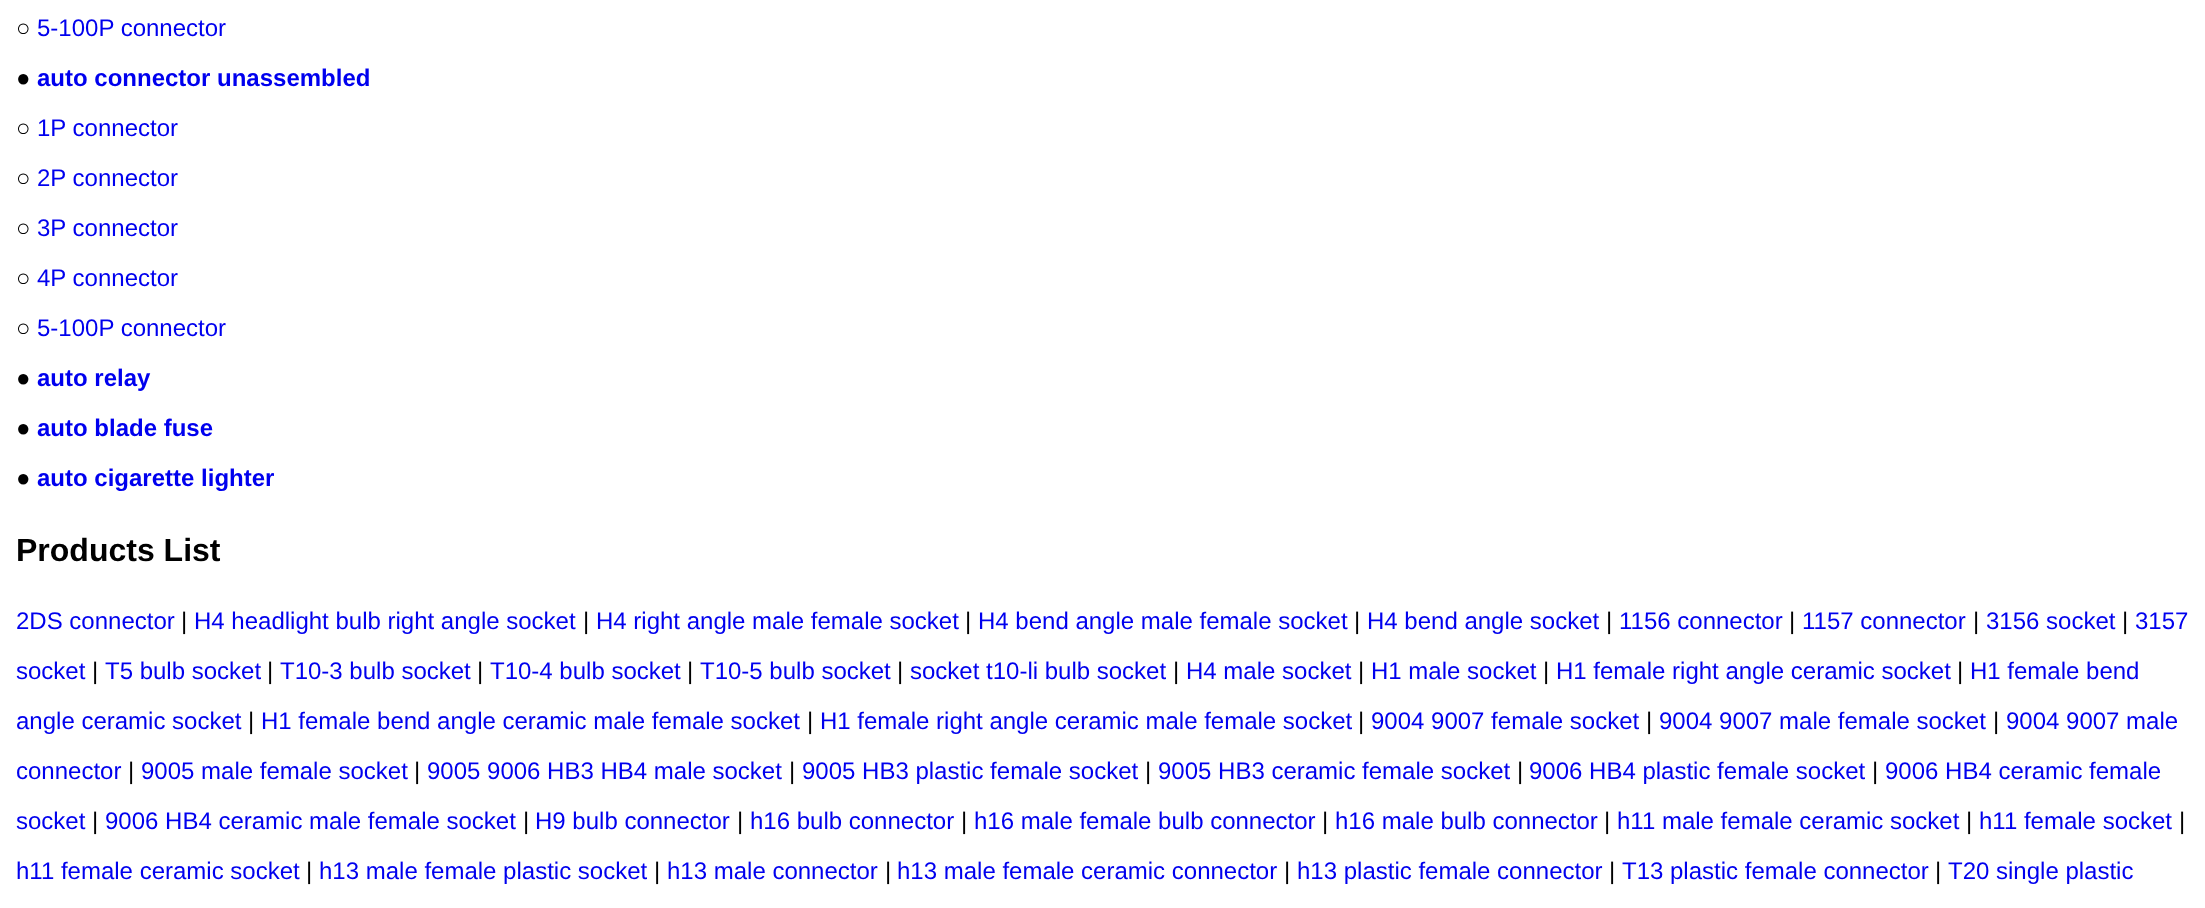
<!DOCTYPE html>
<meta charset="utf-8">
<style>body { margin: 0 } canvas { display: block }</style>
<canvas id="canvas" width="2205" height="908"></canvas>
<script>
window.onload = function () {
	const canvas = document.getElementById("canvas");
	const ctx = canvas.getContext("2d");
	ctx.miterLimit = 4;
	ctx.fontKerning = "normal";
	function txt(s, x, y) {
		ctx.fillText(s, x, y);
	}
	function fill(x, y, w, h) {
		ctx.fillRect(x, y, w, h);
	}

	ctx.fillStyle = "#FFFFFF";
	fill(0, 0, 2205, 908);
	ctx.font = "24px Liberation Sans";
	ctx.fillStyle = "#000000";
	txt("○", 16, 36);
	ctx.fillStyle = "#0000EE";
	txt("5-100P connector", 37, 36);
	ctx.fillStyle = "#000000";
	txt("●", 16, 86);
	ctx.font = "bold 24px Liberation Sans";
	ctx.fillStyle = "#0000EE";
	txt("auto connector unassembled", 37, 86);
	ctx.font = "24px Liberation Sans";
	ctx.fillStyle = "#000000";
	txt("○", 16, 136);
	ctx.fillStyle = "#0000EE";
	txt("1P connector", 37, 136);
	ctx.fillStyle = "#000000";
	txt("○", 16, 186);
	ctx.fillStyle = "#0000EE";
	txt("2P connector", 37, 186);
	ctx.fillStyle = "#000000";
	txt("○", 16, 236);
	ctx.fillStyle = "#0000EE";
	txt("3P connector", 37, 236);
	ctx.fillStyle = "#000000";
	txt("○", 16, 286);
	ctx.fillStyle = "#0000EE";
	txt("4P connector", 37, 286);
	ctx.fillStyle = "#000000";
	txt("○", 16, 336);
	ctx.fillStyle = "#0000EE";
	txt("5-100P connector", 37, 336);
	ctx.fillStyle = "#000000";
	txt("●", 16, 386);
	ctx.font = "bold 24px Liberation Sans";
	ctx.fillStyle = "#0000EE";
	txt("auto relay", 37, 386);
	ctx.font = "24px Liberation Sans";
	ctx.fillStyle = "#000000";
	txt("●", 16, 436);
	ctx.font = "bold 24px Liberation Sans";
	ctx.fillStyle = "#0000EE";
	txt("auto blade fuse", 37, 436);
	ctx.font = "24px Liberation Sans";
	ctx.fillStyle = "#000000";
	txt("●", 16, 486);
	ctx.font = "bold 24px Liberation Sans";
	ctx.fillStyle = "#0000EE";
	txt("auto cigarette lighter", 37, 486);
	ctx.font = "bold 32px Liberation Sans";
	ctx.fillStyle = "#000000";
	txt("Products List", 16, 561);
	ctx.font = "24px Liberation Sans";
	ctx.fillStyle = "#0000EE";
	txt("2DS connector", 16, 629);
	ctx.fillStyle = "#000000";
	txt("|", 181, 629);
	ctx.fillStyle = "#0000EE";
	txt("H4 headlight bulb right angle socket", 194, 629);
	ctx.fillStyle = "#000000";
	txt("|", 583, 629);
	ctx.fillStyle = "#0000EE";
	txt("H4 right angle male female socket", 596, 629);
	ctx.fillStyle = "#000000";
	txt("|", 965, 629);
	ctx.fillStyle = "#0000EE";
	txt("H4 bend angle male female socket", 978, 629);
	ctx.fillStyle = "#000000";
	txt("|", 1354, 629);
	ctx.fillStyle = "#0000EE";
	txt("H4 bend angle socket", 1367, 629);
	ctx.fillStyle = "#000000";
	txt("|", 1606, 629);
	ctx.fillStyle = "#0000EE";
	txt("1156 connector", 1619, 629);
	ctx.fillStyle = "#000000";
	txt("|", 1789, 629);
	ctx.fillStyle = "#0000EE";
	txt("1157 connector", 1802, 629);
	ctx.fillStyle = "#000000";
	txt("|", 1973, 629);
	ctx.fillStyle = "#0000EE";
	txt("3156 socket", 1986, 629);
	ctx.fillStyle = "#000000";
	txt("|", 2122, 629);
	ctx.fillStyle = "#0000EE";
	txt("3157", 2135, 629);
	txt("socket", 16, 679);
	ctx.fillStyle = "#000000";
	txt("|", 92, 679);
	ctx.fillStyle = "#0000EE";
	txt("T5 bulb socket", 105, 679);
	ctx.fillStyle = "#000000";
	txt("|", 267, 679);
	ctx.fillStyle = "#0000EE";
	txt("T10-3 bulb socket", 280, 679);
	ctx.fillStyle = "#000000";
	txt("|", 477, 679);
	ctx.fillStyle = "#0000EE";
	txt("T10-4 bulb socket", 490, 679);
	ctx.fillStyle = "#000000";
	txt("|", 687, 679);
	ctx.fillStyle = "#0000EE";
	txt("T10-5 bulb socket", 700, 679);
	ctx.fillStyle = "#000000";
	txt("|", 897, 679);
	ctx.fillStyle = "#0000EE";
	txt("socket t10-li bulb socket", 910, 679);
	ctx.fillStyle = "#000000";
	txt("|", 1173, 679);
	ctx.fillStyle = "#0000EE";
	txt("H4 male socket", 1186, 679);
	ctx.fillStyle = "#000000";
	txt("|", 1358, 679);
	ctx.fillStyle = "#0000EE";
	txt("H1 male socket", 1371, 679);
	ctx.fillStyle = "#000000";
	txt("|", 1543, 679);
	ctx.fillStyle = "#0000EE";
	txt("H1 female right angle ceramic socket", 1556, 679);
	ctx.fillStyle = "#000000";
	txt("|", 1957, 679);
	ctx.fillStyle = "#0000EE";
	txt("H1 female bend", 1970, 679);
	txt("angle ceramic socket", 16, 729);
	ctx.fillStyle = "#000000";
	txt("|", 248, 729);
	ctx.fillStyle = "#0000EE";
	txt("H1 female bend angle ceramic male female socket", 261, 729);
	ctx.fillStyle = "#000000";
	txt("|", 807, 729);
	ctx.fillStyle = "#0000EE";
	txt("H1 female right angle ceramic male female socket", 820, 729);
	ctx.fillStyle = "#000000";
	txt("|", 1358, 729);
	ctx.fillStyle = "#0000EE";
	txt("9004 9007 female socket", 1371, 729);
	ctx.fillStyle = "#000000";
	txt("|", 1646, 729);
	ctx.fillStyle = "#0000EE";
	txt("9004 9007 male female socket", 1659, 729);
	ctx.fillStyle = "#000000";
	txt("|", 1993, 729);
	ctx.fillStyle = "#0000EE";
	txt("9004 9007 male", 2006, 729);
	txt("connector", 16, 779);
	ctx.fillStyle = "#000000";
	txt("|", 128, 779);
	ctx.fillStyle = "#0000EE";
	txt("9005 male female socket", 141, 779);
	ctx.fillStyle = "#000000";
	txt("|", 414, 779);
	ctx.fillStyle = "#0000EE";
	txt("9005 9006 HB3 HB4 male socket", 427, 779);
	ctx.fillStyle = "#000000";
	txt("|", 789, 779);
	ctx.fillStyle = "#0000EE";
	txt("9005 HB3 plastic female socket", 802, 779);
	ctx.fillStyle = "#000000";
	txt("|", 1145, 779);
	ctx.fillStyle = "#0000EE";
	txt("9005 HB3 ceramic female socket", 1158, 779);
	ctx.fillStyle = "#000000";
	txt("|", 1517, 779);
	ctx.fillStyle = "#0000EE";
	txt("9006 HB4 plastic female socket", 1529, 779);
	ctx.fillStyle = "#000000";
	txt("|", 1872, 779);
	ctx.fillStyle = "#0000EE";
	txt("9006 HB4 ceramic female", 1885, 779);
	txt("socket", 16, 829);
	ctx.fillStyle = "#000000";
	txt("|", 92, 829);
	ctx.fillStyle = "#0000EE";
	txt("9006 HB4 ceramic male female socket", 105, 829);
	ctx.fillStyle = "#000000";
	txt("|", 523, 829);
	ctx.fillStyle = "#0000EE";
	txt("H9 bulb connector", 535, 829);
	ctx.fillStyle = "#000000";
	txt("|", 737, 829);
	ctx.fillStyle = "#0000EE";
	txt("h16 bulb connector", 750, 829);
	ctx.fillStyle = "#000000";
	txt("|", 961, 829);
	ctx.fillStyle = "#0000EE";
	txt("h16 male female bulb connector", 974, 829);
	ctx.fillStyle = "#000000";
	txt("|", 1322, 829);
	ctx.fillStyle = "#0000EE";
	txt("h16 male bulb connector", 1335, 829);
	ctx.fillStyle = "#000000";
	txt("|", 1604, 829);
	ctx.fillStyle = "#0000EE";
	txt("h11 male female ceramic socket", 1617, 829);
	ctx.fillStyle = "#000000";
	txt("|", 1966, 829);
	ctx.fillStyle = "#0000EE";
	txt("h11 female socket", 1979, 829);
	ctx.fillStyle = "#000000";
	txt("|", 2179, 829);
	ctx.fillStyle = "#0000EE";
	txt("h11 female ceramic socket", 16, 879);
	ctx.fillStyle = "#000000";
	txt("|", 306, 879);
	ctx.fillStyle = "#0000EE";
	txt("h13 male female plastic socket", 319, 879);
	ctx.fillStyle = "#000000";
	txt("|", 654, 879);
	ctx.fillStyle = "#0000EE";
	txt("h13 male connector", 667, 879);
	ctx.fillStyle = "#000000";
	txt("|", 885, 879);
	ctx.fillStyle = "#0000EE";
	txt("h13 male female ceramic connector", 897, 879);
	ctx.fillStyle = "#000000";
	txt("|", 1284, 879);
	ctx.fillStyle = "#0000EE";
	txt("h13 plastic female connector", 1297, 879);
	ctx.fillStyle = "#000000";
	txt("|", 1609, 879);
	ctx.fillStyle = "#0000EE";
	txt("T13 plastic female connector", 1622, 879);
	ctx.fillStyle = "#000000";
	txt("|", 1935, 879);
	ctx.fillStyle = "#0000EE";
	txt("T20 single plastic", 1948, 879);
};
</script>
